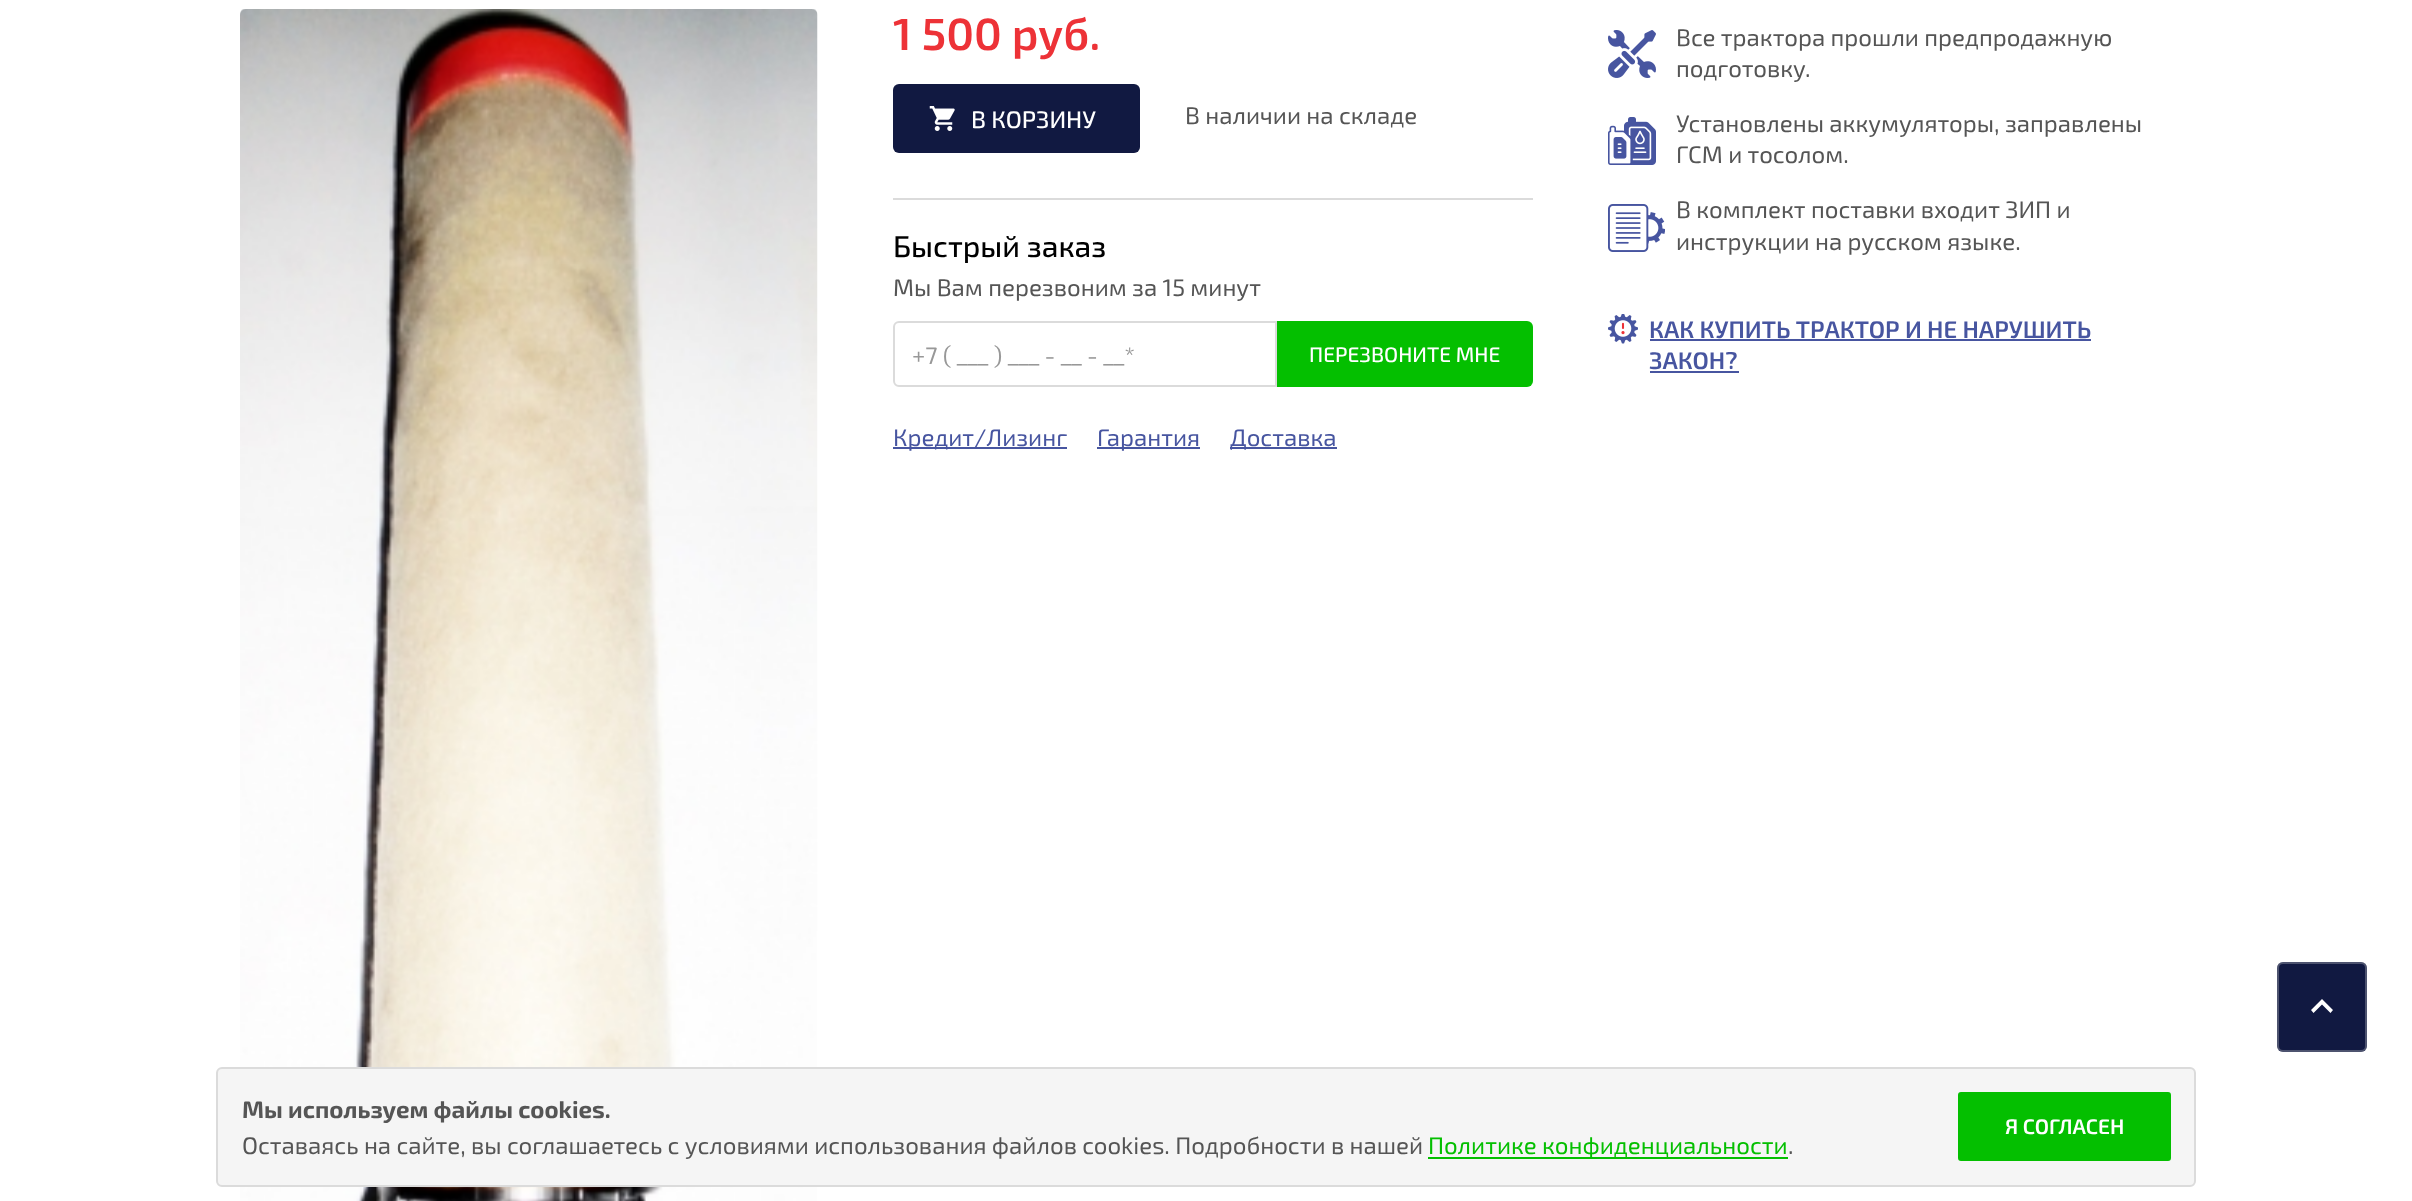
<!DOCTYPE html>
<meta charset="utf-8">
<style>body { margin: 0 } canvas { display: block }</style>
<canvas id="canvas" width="2412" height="1201"></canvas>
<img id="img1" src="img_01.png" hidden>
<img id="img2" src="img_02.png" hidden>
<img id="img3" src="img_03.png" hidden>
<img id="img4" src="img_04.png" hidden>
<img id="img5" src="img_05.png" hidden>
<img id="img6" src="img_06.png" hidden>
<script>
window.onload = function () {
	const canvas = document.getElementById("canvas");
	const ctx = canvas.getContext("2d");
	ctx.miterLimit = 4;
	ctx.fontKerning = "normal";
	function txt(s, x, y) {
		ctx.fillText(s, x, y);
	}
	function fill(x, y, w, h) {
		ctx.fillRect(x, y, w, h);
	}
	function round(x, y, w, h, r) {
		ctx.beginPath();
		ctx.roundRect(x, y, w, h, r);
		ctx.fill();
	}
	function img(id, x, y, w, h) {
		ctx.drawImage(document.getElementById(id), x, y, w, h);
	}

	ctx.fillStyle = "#FFFFFF";
	fill(0, 0, 2412, 1201);
	img("img1", 240, 9, 578, 1192);
	ctx.fillStyle = "#111941";
	round(893, 84, 247, 69, 6);
	img("img2", 929, 106, 26, 25);
	ctx.fillStyle = "#DBDBDB";
	fill(893, 198, 640, 2);
	ctx.beginPath();
	ctx.roundRect(894, 322, 382, 64, [5, 0, 0, 5]);
	ctx.strokeStyle = "#DBDBDB";
	ctx.lineWidth = 2;
	ctx.stroke();
	ctx.fillStyle = "#04BF00";
	ctx.beginPath();
	ctx.roundRect(1277, 321, 256, 66, [0, 6, 6, 0]);
	ctx.fill();
	ctx.fillStyle = "#4755A0";
	fill(893, 447, 174, 2);
	fill(1097, 447, 103, 2);
	fill(1230, 447, 107, 2);
	img("img3", 1608, 30, 48, 48);
	img("img4", 1608, 117, 48, 48);
	img("img5", 1608, 204, 57, 48);
	img("img6", 1608, 314, 30, 30);
	fill(1650, 339, 441, 2);
	fill(1650, 371, 89, 2);
	ctx.fillStyle = "#111941";
	round(2277, 962, 90, 90, 6);
	ctx.fillStyle = "#FFFFFF";
	ctx.beginPath();
	ctx.moveTo(2322, 999);
	ctx.lineTo(2311, 1010);
	ctx.lineTo(2313.5, 1013);
	ctx.lineTo(2322, 1004.5);
	ctx.lineTo(2330.5, 1013);
	ctx.lineTo(2333, 1010);
	ctx.closePath();
	ctx.fill();
	ctx.beginPath();
	ctx.roundRect(2278, 963, 88, 88, 5);
	ctx.strokeStyle = "rgba(219, 219, 219, 0.3)";
	ctx.stroke();
	ctx.fillStyle = "#F5F5F5";
	ctx.beginPath();
	ctx.roundRect(217, 1068, 1978, 118, 5);
	ctx.fill();
	ctx.strokeStyle = "#DBDBDB";
	ctx.stroke();
	ctx.fillStyle = "#04BF00";
	fill(1428, 1157, 360, 2);
	ctx.beginPath();
	ctx.roundRect(1959, 1093, 211, 67, 2);
	ctx.fill();
	ctx.strokeStyle = "#04BF00";
	ctx.stroke();
	ctx.font = "600 45px 'Exo 2'";
	ctx.fillStyle = "#ED3237";
	txt("1 500 руб.", 893, 50);
	ctx.font = "500 24px 'Exo 2'";
	ctx.fillStyle = "#FFFFFF";
	txt("В КОРЗИНУ", 971, 128);
	ctx.font = "24px 'Exo 2'";
	ctx.fillStyle = "#555555";
	txt("В наличии на складе", 1185, 124);
	ctx.font = "500 30px 'Exo 2'";
	ctx.fillStyle = "#000000";
	txt("Быстрый заказ", 893, 257);
	ctx.font = "24px 'Exo 2'";
	ctx.fillStyle = "#555555";
	txt("Мы Вам перезвоним за 15 минут", 893, 296);
	ctx.fillStyle = "#989898";
	txt("+7 ( ___ ) ___ - __ - __*", 912, 364);
	ctx.font = "500 21px 'Exo 2'";
	ctx.fillStyle = "#FFFFFF";
	txt("ПЕРЕЗВОНИТЕ МНЕ", 1309, 362);
	ctx.font = "24px 'Exo 2'";
	ctx.fillStyle = "#4755A0";
	txt("Кредит/Лизинг", 893, 446);
	txt("Гарантия", 1097, 446);
	txt("Доставка", 1230, 446);
	ctx.fillStyle = "#555555";
	txt("Все трактора прошли предпродажную", 1676, 46);
	txt("подготовку.", 1676, 77);
	txt("Установлены аккумуляторы, заправлены", 1676, 132);
	txt("ГСМ и тосолом.", 1676, 163);
	txt("В комплект поставки входит ЗИП и", 1676, 218);
	txt("инструкции на русском языке.", 1676, 250);
	ctx.font = "600 24px 'Exo 2'";
	ctx.fillStyle = "#4755A0";
	txt("КАК КУПИТЬ ТРАКТОР И НЕ НАРУШИТЬ", 1649, 338);
	txt("ЗАКОН?", 1649, 369);
	ctx.font = "bold 24px 'Exo 2'";
	ctx.fillStyle = "#555555";
	txt("Мы используем файлы cookies.", 242, 1118);
	ctx.font = "24px 'Exo 2'";
	txt("Оставаясь на сайте, вы соглашаетесь с условиями использования файлов cookies. Подробности в нашей", 242, 1154);
	ctx.fillStyle = "#04BF00";
	txt("Политике конфиденциальности", 1428, 1154);
	ctx.fillStyle = "#555555";
	txt(".", 1788, 1154);
	ctx.font = "600 21px 'Exo 2'";
	ctx.fillStyle = "#FFFFFF";
	txt("Я СОГЛАСЕН", 2005, 1134);
};
</script>
